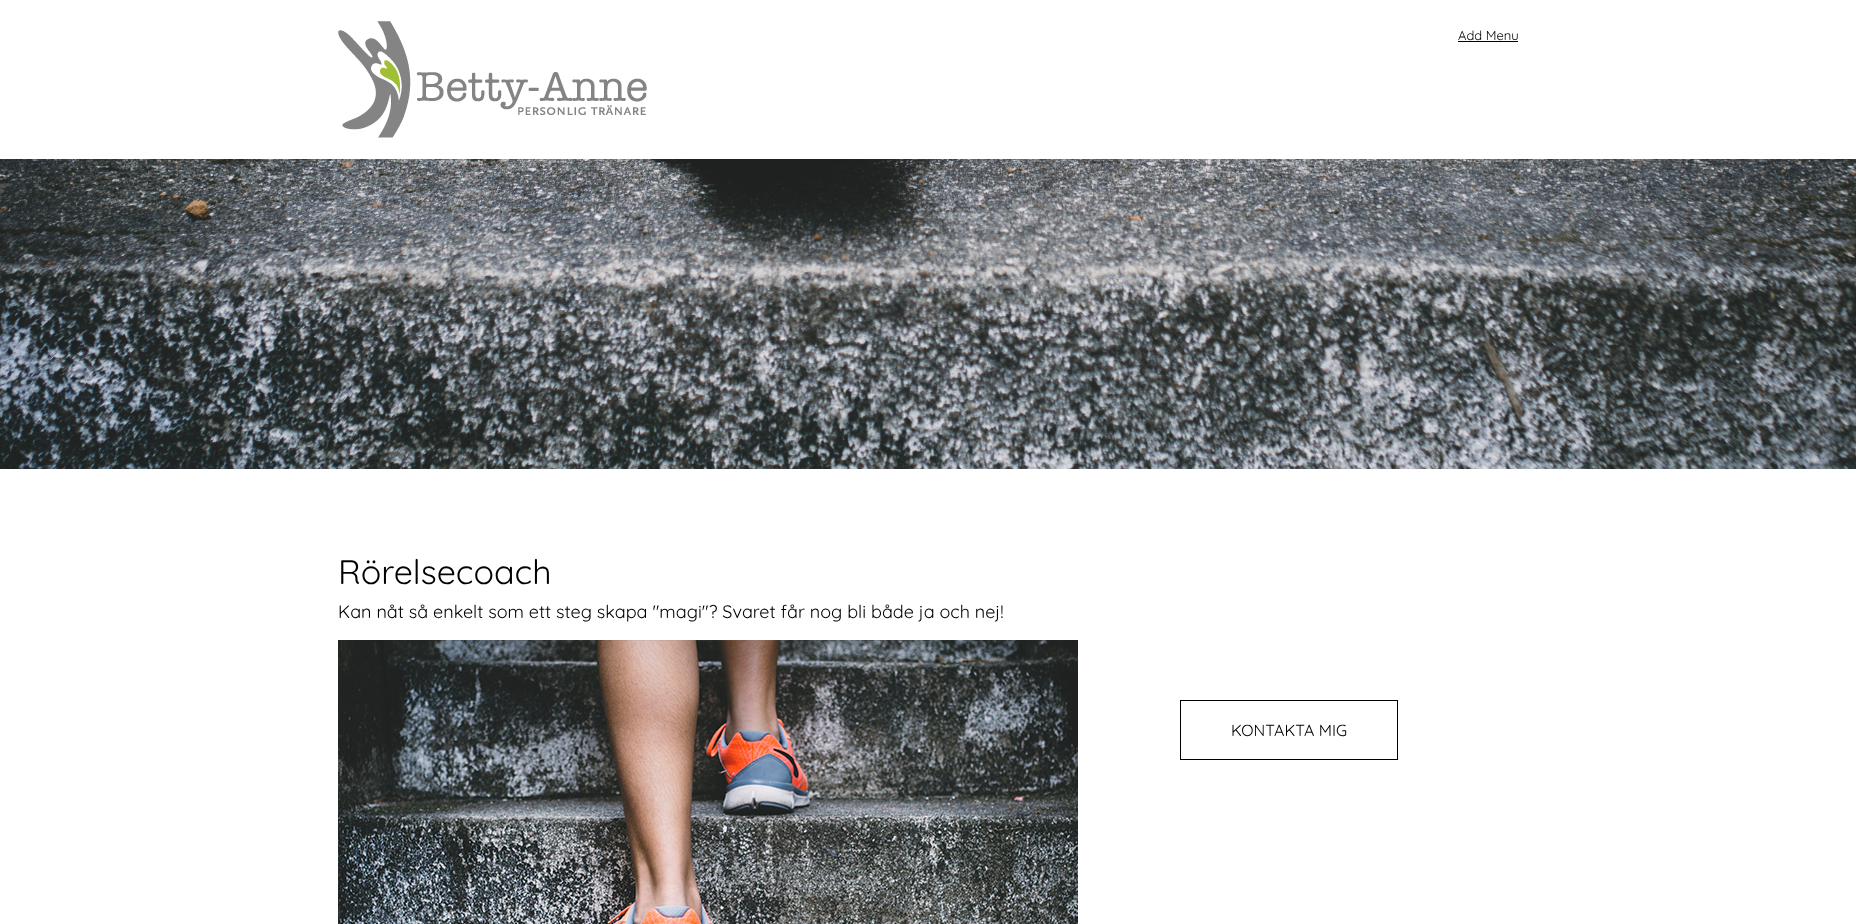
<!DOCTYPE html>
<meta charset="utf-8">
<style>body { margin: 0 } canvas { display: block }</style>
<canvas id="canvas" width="1856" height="924"></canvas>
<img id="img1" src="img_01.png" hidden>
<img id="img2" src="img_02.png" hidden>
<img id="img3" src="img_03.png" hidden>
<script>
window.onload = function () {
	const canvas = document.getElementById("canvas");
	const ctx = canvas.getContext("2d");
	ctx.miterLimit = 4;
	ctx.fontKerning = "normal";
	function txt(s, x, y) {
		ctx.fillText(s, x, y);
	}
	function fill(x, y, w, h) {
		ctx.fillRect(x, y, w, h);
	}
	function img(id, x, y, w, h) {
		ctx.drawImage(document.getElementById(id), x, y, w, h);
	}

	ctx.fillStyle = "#FFFFFF";
	fill(0, 0, 1856, 924);
	img("img1", 338, 21, 309, 117);
	ctx.fillStyle = "#000000";
	fill(1458, 41, 60, 1);
	img("img2", 0, 159, 1856, 310);
	img("img3", 338, 640, 740, 284);
	ctx.strokeStyle = "#000000";
	ctx.strokeRect(1180.5, 700.5, 217, 59);
	ctx.font = "13px Quicksand";
	txt("Add Menu", 1458, 40);
	ctx.font = "34px Quicksand";
	txt("Rörelsecoach", 338, 584);
	ctx.font = "18px Quicksand";
	txt("Kan nåt så enkelt som ett steg skapa \"magi\"? Svaret får nog bli både ja och nej!", 338, 618);
	ctx.font = "16px Quicksand";
	txt("KONTAKTA MIG", 1231, 736);
};
</script>
